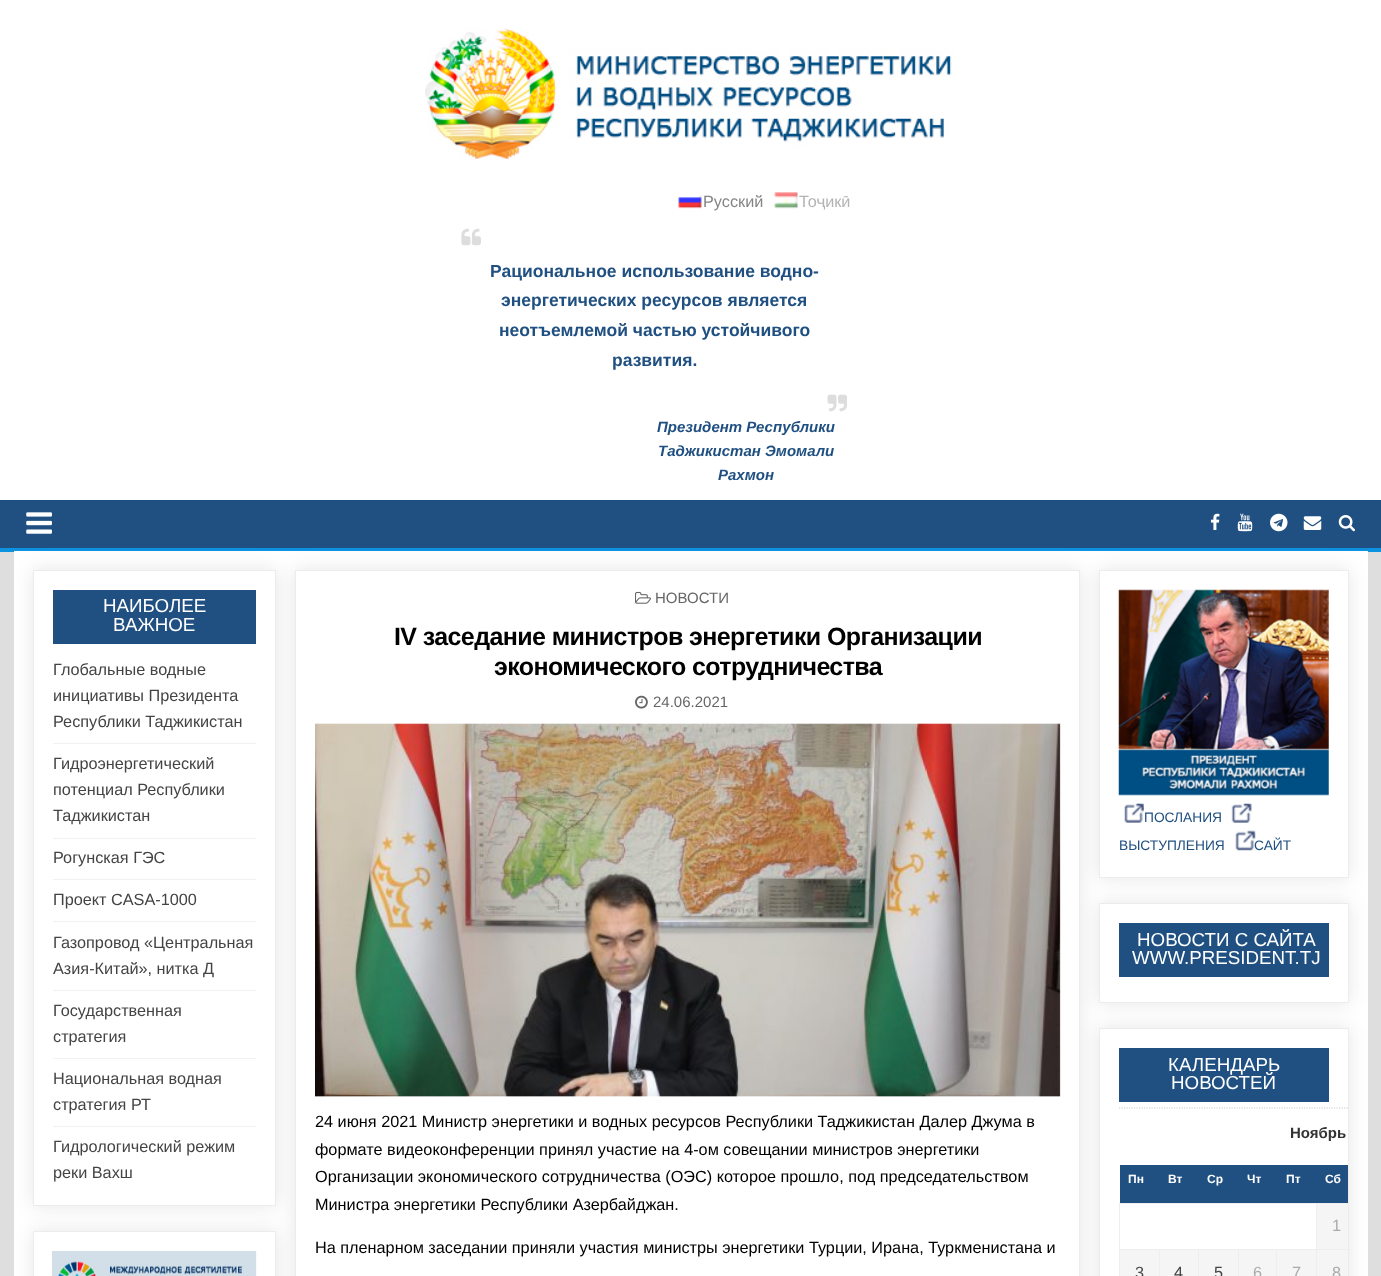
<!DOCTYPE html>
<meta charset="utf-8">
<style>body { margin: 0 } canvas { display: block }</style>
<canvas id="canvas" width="1381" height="1276"></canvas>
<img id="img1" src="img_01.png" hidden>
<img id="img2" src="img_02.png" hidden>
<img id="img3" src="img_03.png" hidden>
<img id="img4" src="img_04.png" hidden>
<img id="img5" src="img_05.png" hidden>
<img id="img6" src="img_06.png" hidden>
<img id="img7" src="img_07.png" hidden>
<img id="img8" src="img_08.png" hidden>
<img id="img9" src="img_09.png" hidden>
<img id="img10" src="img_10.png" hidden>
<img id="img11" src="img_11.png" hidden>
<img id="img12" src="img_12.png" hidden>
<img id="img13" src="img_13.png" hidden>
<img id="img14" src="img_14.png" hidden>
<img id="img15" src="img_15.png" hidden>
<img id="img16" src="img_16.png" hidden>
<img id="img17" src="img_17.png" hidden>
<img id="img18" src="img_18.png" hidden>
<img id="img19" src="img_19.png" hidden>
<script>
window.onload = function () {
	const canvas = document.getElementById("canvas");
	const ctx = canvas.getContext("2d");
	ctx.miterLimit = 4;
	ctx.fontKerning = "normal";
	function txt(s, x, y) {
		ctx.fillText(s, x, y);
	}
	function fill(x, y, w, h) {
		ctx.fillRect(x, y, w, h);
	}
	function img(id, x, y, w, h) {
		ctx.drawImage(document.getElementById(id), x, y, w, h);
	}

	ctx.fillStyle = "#DEDEDE";
	fill(0, 0, 1381, 1276);
	ctx.fillStyle = "#FFFFFF";
	fill(0, 0, 1381, 500);
	img("img1", 425, 28, 530, 131);
	img("img2", 678, 195, 24, 14);
	img("img3", 774, 192, 24, 17);
	img("img4", 461, 228, 20, 18);
	img("img5", 827, 394, 20, 18);
	ctx.fillStyle = "#205081";
	fill(0, 500, 1381, 48);
	ctx.fillStyle = "#0C92DF";
	fill(0, 548, 1381, 4);
	img("img6", 26, 512, 26, 22);
	img("img7", 1210, 513, 10, 17);
	img("img8", 1237, 513, 16, 19);
	img("img9", 1270, 513, 18, 19);
	img("img10", 1303, 516, 19, 14);
	img("img11", 1338, 515, 17, 17);
	ctx.fillStyle = "#FFFFFF";
	fill(14, 551, 1354, 725);
	ctx.save();
	ctx.beginPath();
	ctx.moveTo(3, 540);
	ctx.lineTo(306, 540);
	ctx.lineTo(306, 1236);
	ctx.lineTo(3, 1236);
	ctx.closePath();
	ctx.moveTo(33, 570);
	ctx.lineTo(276, 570);
	ctx.lineTo(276, 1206);
	ctx.lineTo(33, 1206);
	ctx.closePath();
	ctx.clip("evenodd");
	ctx.fillStyle = "rgba(0, 0, 0, 0.1)";
	ctx.filter = "blur(9.5px)";
	ctx.beginPath();
	ctx.rect(33, 570, 243, 636);
	ctx.fill();
	ctx.filter = "none";
	ctx.restore();
	ctx.strokeStyle = "#ECECEC";
	ctx.strokeRect(33.5, 570.5, 242, 635);
	ctx.fillStyle = "#205081";
	fill(53, 590, 203, 54);
	ctx.fillStyle = "#F1F1F1";
	fill(53, 743, 203, 1);
	fill(53, 838, 203, 1);
	fill(53, 879, 203, 1);
	fill(53, 921, 203, 1);
	fill(53, 990, 203, 1);
	fill(53, 1058, 203, 1);
	fill(53, 1126, 203, 1);
	ctx.fillStyle = "rgba(0, 0, 0, 0.1)";
	ctx.filter = "blur(9.5px)";
	ctx.beginPath();
	ctx.rect(33, 1231, 243, 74);
	ctx.fill();
	ctx.filter = "none";
	ctx.fillStyle = "#FFFFFF";
	ctx.beginPath();
	ctx.rect(33.5, 1231.5, 242, 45);
	ctx.fill();
	ctx.stroke();
	img("img12", 52, 1251, 205, 25);
	ctx.save();
	ctx.beginPath();
	ctx.moveTo(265, 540);
	ctx.lineTo(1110, 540);
	ctx.lineTo(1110, 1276);
	ctx.lineTo(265, 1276);
	ctx.closePath();
	ctx.moveTo(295, 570);
	ctx.lineTo(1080, 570);
	ctx.lineTo(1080, 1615);
	ctx.lineTo(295, 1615);
	ctx.closePath();
	ctx.clip("evenodd");
	ctx.fillStyle = "rgba(0, 0, 0, 0.1)";
	ctx.filter = "blur(9.5px)";
	ctx.beginPath();
	ctx.rect(295, 570, 785, 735);
	ctx.fill();
	ctx.filter = "none";
	ctx.restore();
	ctx.strokeRect(295.5, 570.5, 784, 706);
	img("img13", 635, 591, 16, 13);
	img("img14", 635, 695, 13, 14);
	img("img15", 315, 723, 746, 374);
	ctx.fillStyle = "rgba(0, 0, 0, 0.1)";
	ctx.filter = "blur(9.5px)";
	ctx.beginPath();
	ctx.rect(1099, 570, 250, 308);
	ctx.fill();
	ctx.filter = "none";
	ctx.fillStyle = "#FFFFFF";
	ctx.beginPath();
	ctx.rect(1099.5, 570.5, 249, 307);
	ctx.fill();
	ctx.stroke();
	img("img16", 1118, 589, 211, 207);
	img("img17", 1124, 803, 20, 20);
	img("img18", 1231, 803, 21, 20);
	img("img19", 1235, 830, 21, 21);
	ctx.fillStyle = "rgba(0, 0, 0, 0.1)";
	ctx.filter = "blur(9.5px)";
	ctx.beginPath();
	ctx.rect(1099, 903, 250, 100);
	ctx.fill();
	ctx.filter = "none";
	ctx.fillStyle = "#FFFFFF";
	ctx.beginPath();
	ctx.rect(1099.5, 903.5, 249, 99);
	ctx.fill();
	ctx.stroke();
	ctx.fillStyle = "#205081";
	fill(1119, 923, 210, 54);
	ctx.fillStyle = "rgba(0, 0, 0, 0.1)";
	ctx.filter = "blur(9.5px)";
	ctx.beginPath();
	ctx.rect(1099, 1028, 250, 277);
	ctx.fill();
	ctx.filter = "none";
	ctx.fillStyle = "#FFFFFF";
	ctx.beginPath();
	ctx.rect(1099.5, 1028.5, 249, 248);
	ctx.fill();
	ctx.stroke();
	ctx.fillStyle = "#205081";
	fill(1119, 1048, 210, 54);
	ctx.save();
	ctx.beginPath();
	ctx.rect(1100, 1029, 248, 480);
	ctx.clip();
	ctx.beginPath();
	ctx.moveTo(1119, 1108);
	ctx.lineTo(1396, 1108);
	ctx.strokeStyle = "#CCCCCC";
	ctx.lineWidth = 1.2;
	ctx.setLineDash([1.25, 1.25]);
	ctx.stroke();
	ctx.restore();
	fill(1120, 1165, 228, 38);
	ctx.fillStyle = "#EEEEEE";
	fill(1316, 1203, 32, 1);
	fill(1316, 1249, 32, 1);
	fill(1316, 1249, 1, 27);
	fill(1276, 1249, 42, 1);
	fill(1316, 1203, 1, 47);
	fill(1119, 1203, 199, 1);
	ctx.fillStyle = "#F5F5F5";
	fill(1239, 1250, 77, 26);
	ctx.fillStyle = "#EEEEEE";
	fill(1276, 1249, 1, 27);
	fill(1238, 1249, 40, 1);
	fill(1238, 1249, 1, 27);
	fill(1198, 1249, 41, 1);
	fill(1198, 1249, 1, 27);
	fill(1159, 1249, 40, 1);
	fill(1159, 1249, 1, 27);
	fill(1119, 1249, 41, 1);
	fill(1119, 1249, 1, 27);
	fill(1119, 1203, 1, 47);
	ctx.fillStyle = "#F5F5F5";
	fill(1317, 1204, 31, 45);
	fill(1120, 1250, 39, 26);
	fill(1160, 1250, 38, 26);
	fill(1199, 1250, 39, 26);
	fill(1317, 1250, 31, 26);
	ctx.font = "16.25px Liberation Sans";
	ctx.fillStyle = "#858585";
	txt("Русский", 703, 207);
	ctx.fillStyle = "#B3B3B3";
	txt("Тоҷикӣ", 799, 207);
	ctx.font = "bold 17.5px Liberation Sans";
	ctx.fillStyle = "#205081";
	txt("Рациональное использование водно-", 490, 277);
	txt("энергетических ресурсов является", 501, 306);
	txt("неотъемлемой частью устойчивого", 499, 336);
	txt("развития.", 612, 366);
	ctx.font = "italic bold 15px Liberation Sans";
	txt("Президент Республики", 657, 432);
	txt("Таджикистан Эмомали", 658, 456);
	txt("Рахмон", 718, 480);
	ctx.font = "18.75px Liberation Sans";
	ctx.fillStyle = "#FFFFFF";
	txt("НАИБОЛЕЕ", 103, 612);
	txt("ВАЖНОЕ", 113, 631);
	ctx.font = "16.25px Liberation Sans";
	ctx.fillStyle = "#444444";
	txt("Глобальные водные", 53, 675);
	txt("инициативы Президента", 53, 701);
	txt("Республики Таджикистан", 53, 727);
	txt("Гидроэнергетический", 53, 769);
	txt("потенциал Республики", 53, 795);
	txt("Таджикистан", 53, 821);
	txt("Рогунская ГЭС", 53, 863);
	txt("Проект CASA-1000", 53, 905);
	txt("Газопровод «Центральная", 53, 948);
	txt("Азия-Китай», нитка Д", 53, 974);
	txt("Государственная", 53, 1016);
	txt("стратегия", 53, 1042);
	txt("Национальная водная", 53, 1084);
	txt("стратегия РТ", 53, 1110);
	txt("Гидрологический режим", 53, 1152);
	txt("реки Вахш", 53, 1178);
	ctx.font = "15px Liberation Sans";
	ctx.fillStyle = "#666666";
	txt("НОВОСТИ", 655, 603);
	ctx.letterSpacing = "-0.6px";
	ctx.font = "bold 25px Liberation Sans";
	ctx.fillStyle = "#000000";
	txt("IV заседание министров энергетики Организации", 394, 645);
	txt("экономического сотрудничества", 494, 675);
	ctx.letterSpacing = "0px";
	ctx.font = "15px Liberation Sans";
	ctx.fillStyle = "#666666";
	txt("24.06.2021", 653, 707);
	ctx.font = "16.25px Liberation Sans";
	ctx.fillStyle = "#000000";
	txt("24 июня 2021 Министр энергетики и водных ресурсов Республики Таджикистан Далер Джума в", 315, 1127);
	txt("формате видеоконференции принял участие на 4-ом совещании министров энергетики", 315, 1155);
	txt("Организации экономического сотрудничества (ОЭС) которое прошло, под председательством", 315, 1182);
	txt("Министра энергетики Республики Азербайджан.", 315, 1210);
	txt("На пленарном заседании приняли участия министры энергетики Турции, Ирана, Туркменистана и", 315, 1253);
	ctx.font = "13.75px Liberation Sans";
	ctx.fillStyle = "#205081";
	txt("ПОСЛАНИЯ", 1144, 822);
	txt("ВЫСТУПЛЕНИЯ", 1119, 850);
	txt("САЙТ", 1254, 850);
	ctx.font = "18.75px Liberation Sans";
	ctx.fillStyle = "#FFFFFF";
	txt("НОВОСТИ С САЙТА", 1137, 946);
	txt("WWW.PRESIDENT.TJ", 1132, 964);
	txt("КАЛЕНДАРЬ", 1168, 1071);
	txt("НОВОСТЕЙ", 1171, 1089);
	ctx.font = "bold 15px Liberation Sans";
	ctx.fillStyle = "#333333";
	txt("Ноябрь", 1290, 1138);
	ctx.font = "bold 12px Liberation Sans";
	ctx.fillStyle = "#FFFFFF";
	txt("Пн", 1128, 1183);
	txt("Вт", 1168, 1183);
	txt("Ср", 1207, 1183);
	txt("Чт", 1247, 1183);
	txt("Пт", 1286, 1183);
	txt("Сб", 1325, 1183);
	ctx.font = "16.25px Liberation Sans";
	ctx.fillStyle = "#AAAAAA";
	txt("1", 1332, 1231);
	ctx.fillStyle = "#444444";
	txt("3", 1135, 1278);
	txt("4", 1174, 1278);
	txt("5", 1214, 1278);
	ctx.fillStyle = "#AAAAAA";
	txt("6", 1253, 1278);
	txt("7", 1292, 1278);
	txt("8", 1332, 1278);
};
</script>
